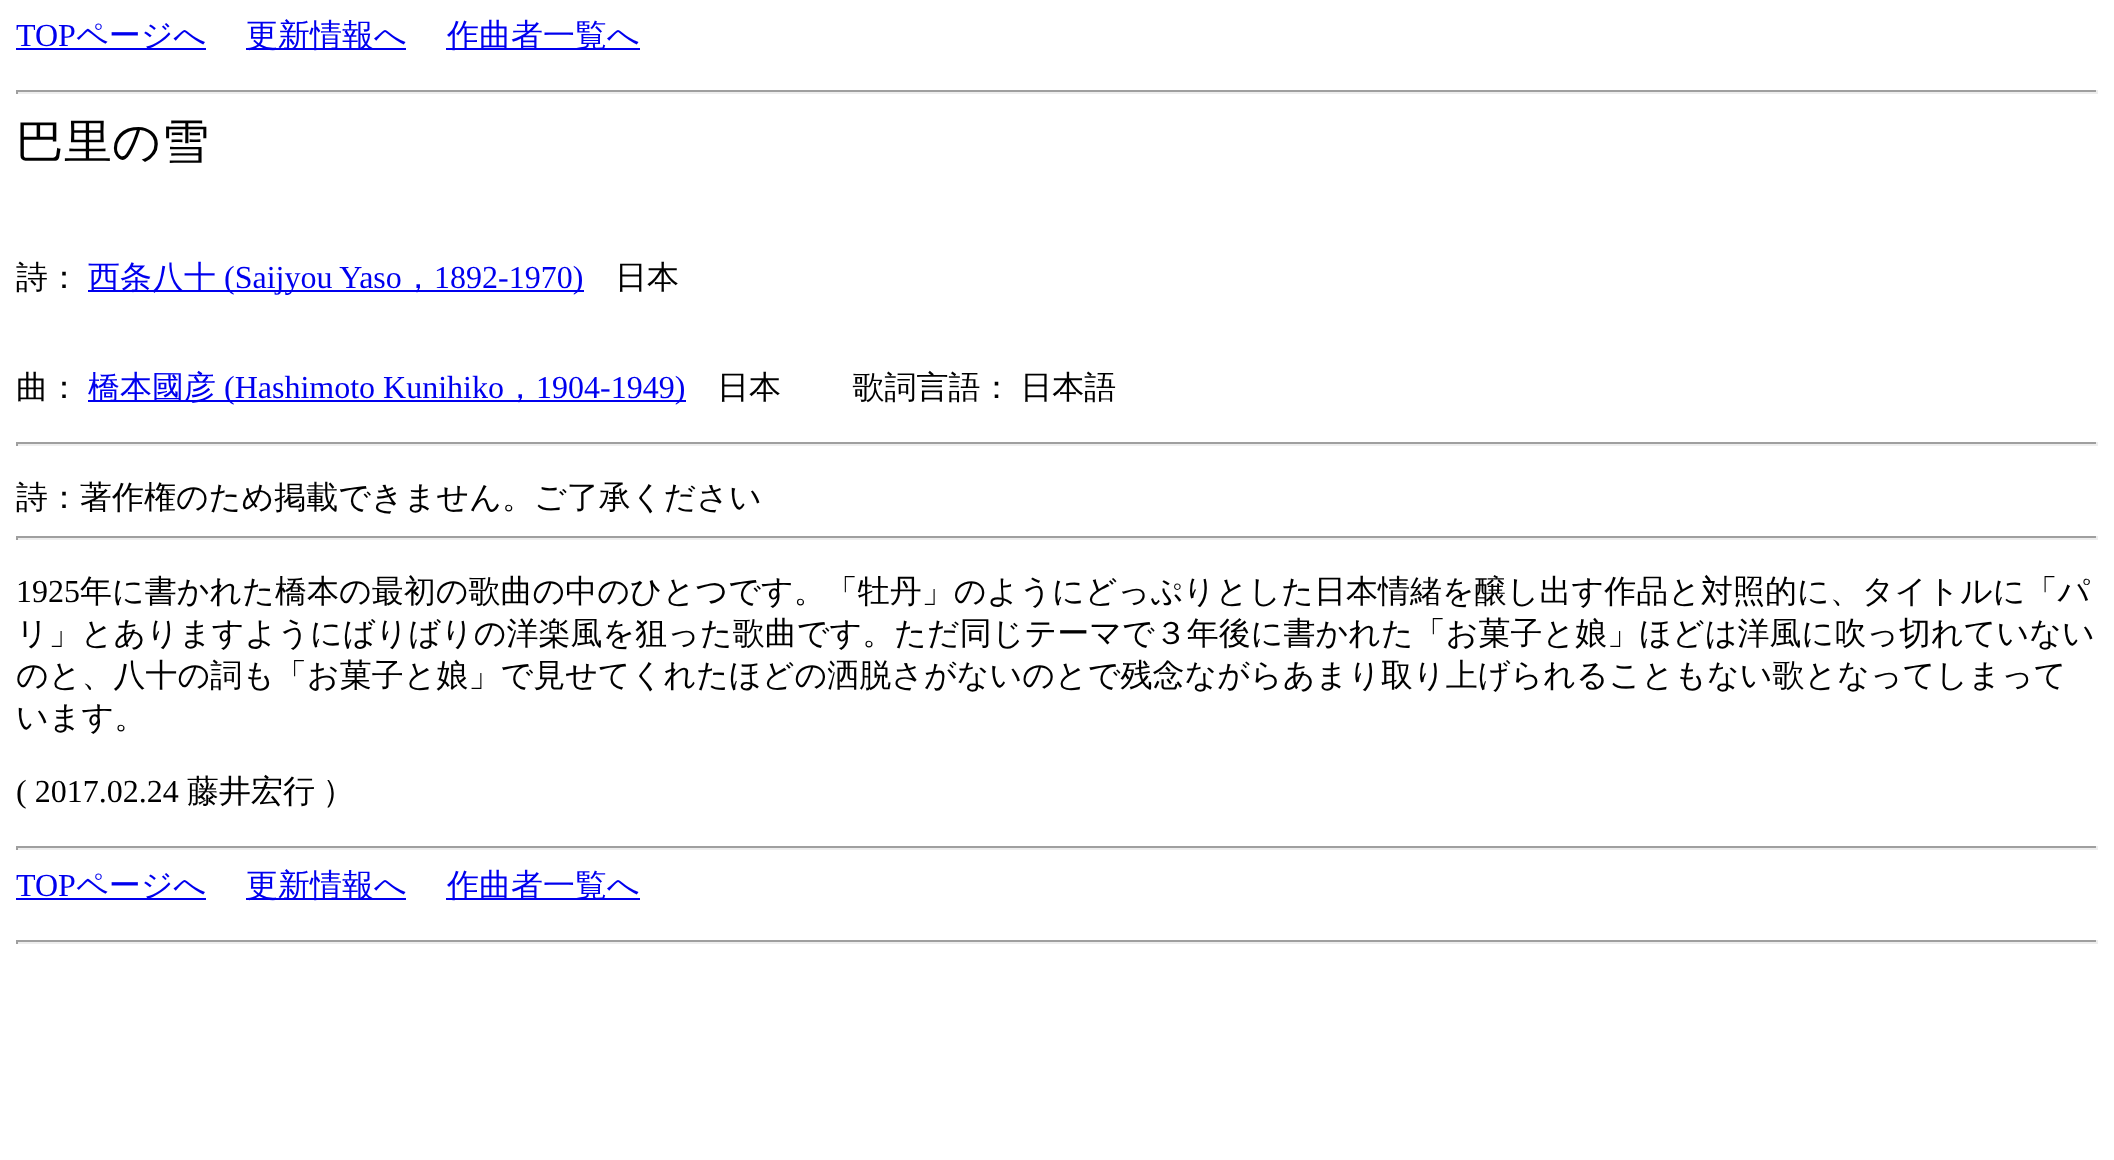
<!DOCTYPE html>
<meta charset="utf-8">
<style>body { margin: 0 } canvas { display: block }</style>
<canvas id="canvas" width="2114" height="1160"></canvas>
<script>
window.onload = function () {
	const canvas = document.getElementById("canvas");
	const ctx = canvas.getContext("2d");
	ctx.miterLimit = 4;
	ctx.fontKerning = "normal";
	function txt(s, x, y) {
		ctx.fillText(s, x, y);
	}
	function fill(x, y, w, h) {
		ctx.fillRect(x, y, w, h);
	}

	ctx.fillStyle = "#FFFFFF";
	fill(0, 0, 2114, 1160);
	ctx.fillStyle = "#0000EE";
	fill(16, 48, 190, 2);
	fill(246, 48, 160, 2);
	fill(446, 48, 194, 2);
	ctx.fillStyle = "#9F9F9F";
	fill(16, 90, 2082, 2);
	ctx.fillStyle = "#EEEEEE";
	fill(2096, 90, 2, 4);
	fill(16, 92, 2082, 2);
	ctx.fillStyle = "#9F9F9F";
	fill(16, 90, 2, 4);
	ctx.fillStyle = "#0000EE";
	fill(88, 290, 496, 2);
	fill(88, 400, 598, 2);
	ctx.fillStyle = "#9F9F9F";
	fill(16, 442, 2082, 2);
	ctx.fillStyle = "#EEEEEE";
	fill(2096, 442, 2, 4);
	fill(16, 444, 2082, 2);
	ctx.fillStyle = "#9F9F9F";
	fill(16, 442, 2, 4);
	fill(16, 536, 2082, 2);
	ctx.fillStyle = "#EEEEEE";
	fill(2096, 536, 2, 4);
	fill(16, 538, 2082, 2);
	ctx.fillStyle = "#9F9F9F";
	fill(16, 536, 2, 4);
	fill(16, 846, 2082, 2);
	ctx.fillStyle = "#EEEEEE";
	fill(2096, 846, 2, 4);
	fill(16, 848, 2082, 2);
	ctx.fillStyle = "#9F9F9F";
	fill(16, 846, 2, 4);
	ctx.fillStyle = "#0000EE";
	fill(16, 898, 190, 2);
	fill(246, 898, 160, 2);
	fill(446, 898, 194, 2);
	ctx.fillStyle = "#9F9F9F";
	fill(16, 940, 2082, 2);
	ctx.fillStyle = "#EEEEEE";
	fill(2096, 940, 2, 4);
	fill(16, 942, 2082, 2);
	ctx.fillStyle = "#9F9F9F";
	fill(16, 940, 2, 4);
	ctx.font = "32px Liberation Serif";
	ctx.fillStyle = "#0000EE";
	txt("TOP", 16, 46);
	ctx.font = "500 32px WenQuanYi Zen Hei";
	txt("ページへ", 76, 46);
	txt("更新情報へ", 246, 46);
	txt("作曲者一覧へ", 447, 46);
	ctx.font = "500 48px WenQuanYi Zen Hei";
	ctx.fillStyle = "#000000";
	txt("巴里の雪", 16, 158);
	ctx.font = "500 32px WenQuanYi Zen Hei";
	txt("詩：", 16, 288);
	ctx.fillStyle = "#0000EE";
	txt("西条八十", 88, 288);
	ctx.font = "32px Liberation Serif";
	txt("(Saijyou Yaso", 224, 288);
	ctx.font = "500 32px WenQuanYi Zen Hei";
	txt("，", 402, 288);
	ctx.font = "32px Liberation Serif";
	txt("1892-1970)", 434, 288);
	ctx.font = "500 32px WenQuanYi Zen Hei";
	ctx.fillStyle = "#000000";
	txt("日本", 615, 288);
	txt("曲：", 16, 398);
	ctx.fillStyle = "#0000EE";
	txt("橋本國彦", 88, 398);
	ctx.font = "32px Liberation Serif";
	txt("(Hashimoto Kunihiko", 224, 398);
	ctx.font = "500 32px WenQuanYi Zen Hei";
	txt("，", 504, 398);
	ctx.font = "32px Liberation Serif";
	txt("1904-1949)", 536, 398);
	ctx.wordSpacing = "-2px";
	ctx.font = "500 32px WenQuanYi Zen Hei";
	ctx.fillStyle = "#000000";
	txt("日本 　　歌詞言語： 日本語", 717, 398);
	ctx.wordSpacing = "0px";
	txt("詩：著作権のため掲載できません。ご了承ください", 16, 508);
	ctx.font = "32px Liberation Serif";
	txt("1925", 16, 602);
	ctx.font = "500 32px WenQuanYi Zen Hei";
	txt("年に書かれた橋本の最初の歌曲の中のひとつです。「牡丹」のようにどっぷりとした日本情緒を醸し出す作品と対照的に、タイトルに「パ", 80, 602);
	txt("リ」とありますようにばりばりの洋楽風を狙った歌曲です。ただ同じテーマで３年後に書かれた「お菓子と娘」ほどは洋風に吹っ切れていない", 16, 644);
	txt("のと、八十の詞も「お菓子と娘」で見せてくれたほどの洒脱さがないのとで残念ながらあまり取り上げられることもない歌となってしまって", 16, 686);
	txt("います。", 16, 728);
	ctx.font = "32px Liberation Serif";
	txt("( 2017.02.24", 16, 802);
	ctx.wordSpacing = "-2px";
	ctx.font = "500 32px WenQuanYi Zen Hei";
	txt("藤井宏行 ）", 187, 802);
	ctx.wordSpacing = "0px";
	ctx.font = "32px Liberation Serif";
	ctx.fillStyle = "#0000EE";
	txt("TOP", 16, 896);
	ctx.font = "500 32px WenQuanYi Zen Hei";
	txt("ページへ", 76, 896);
	txt("更新情報へ", 246, 896);
	txt("作曲者一覧へ", 447, 896);
};
</script>
